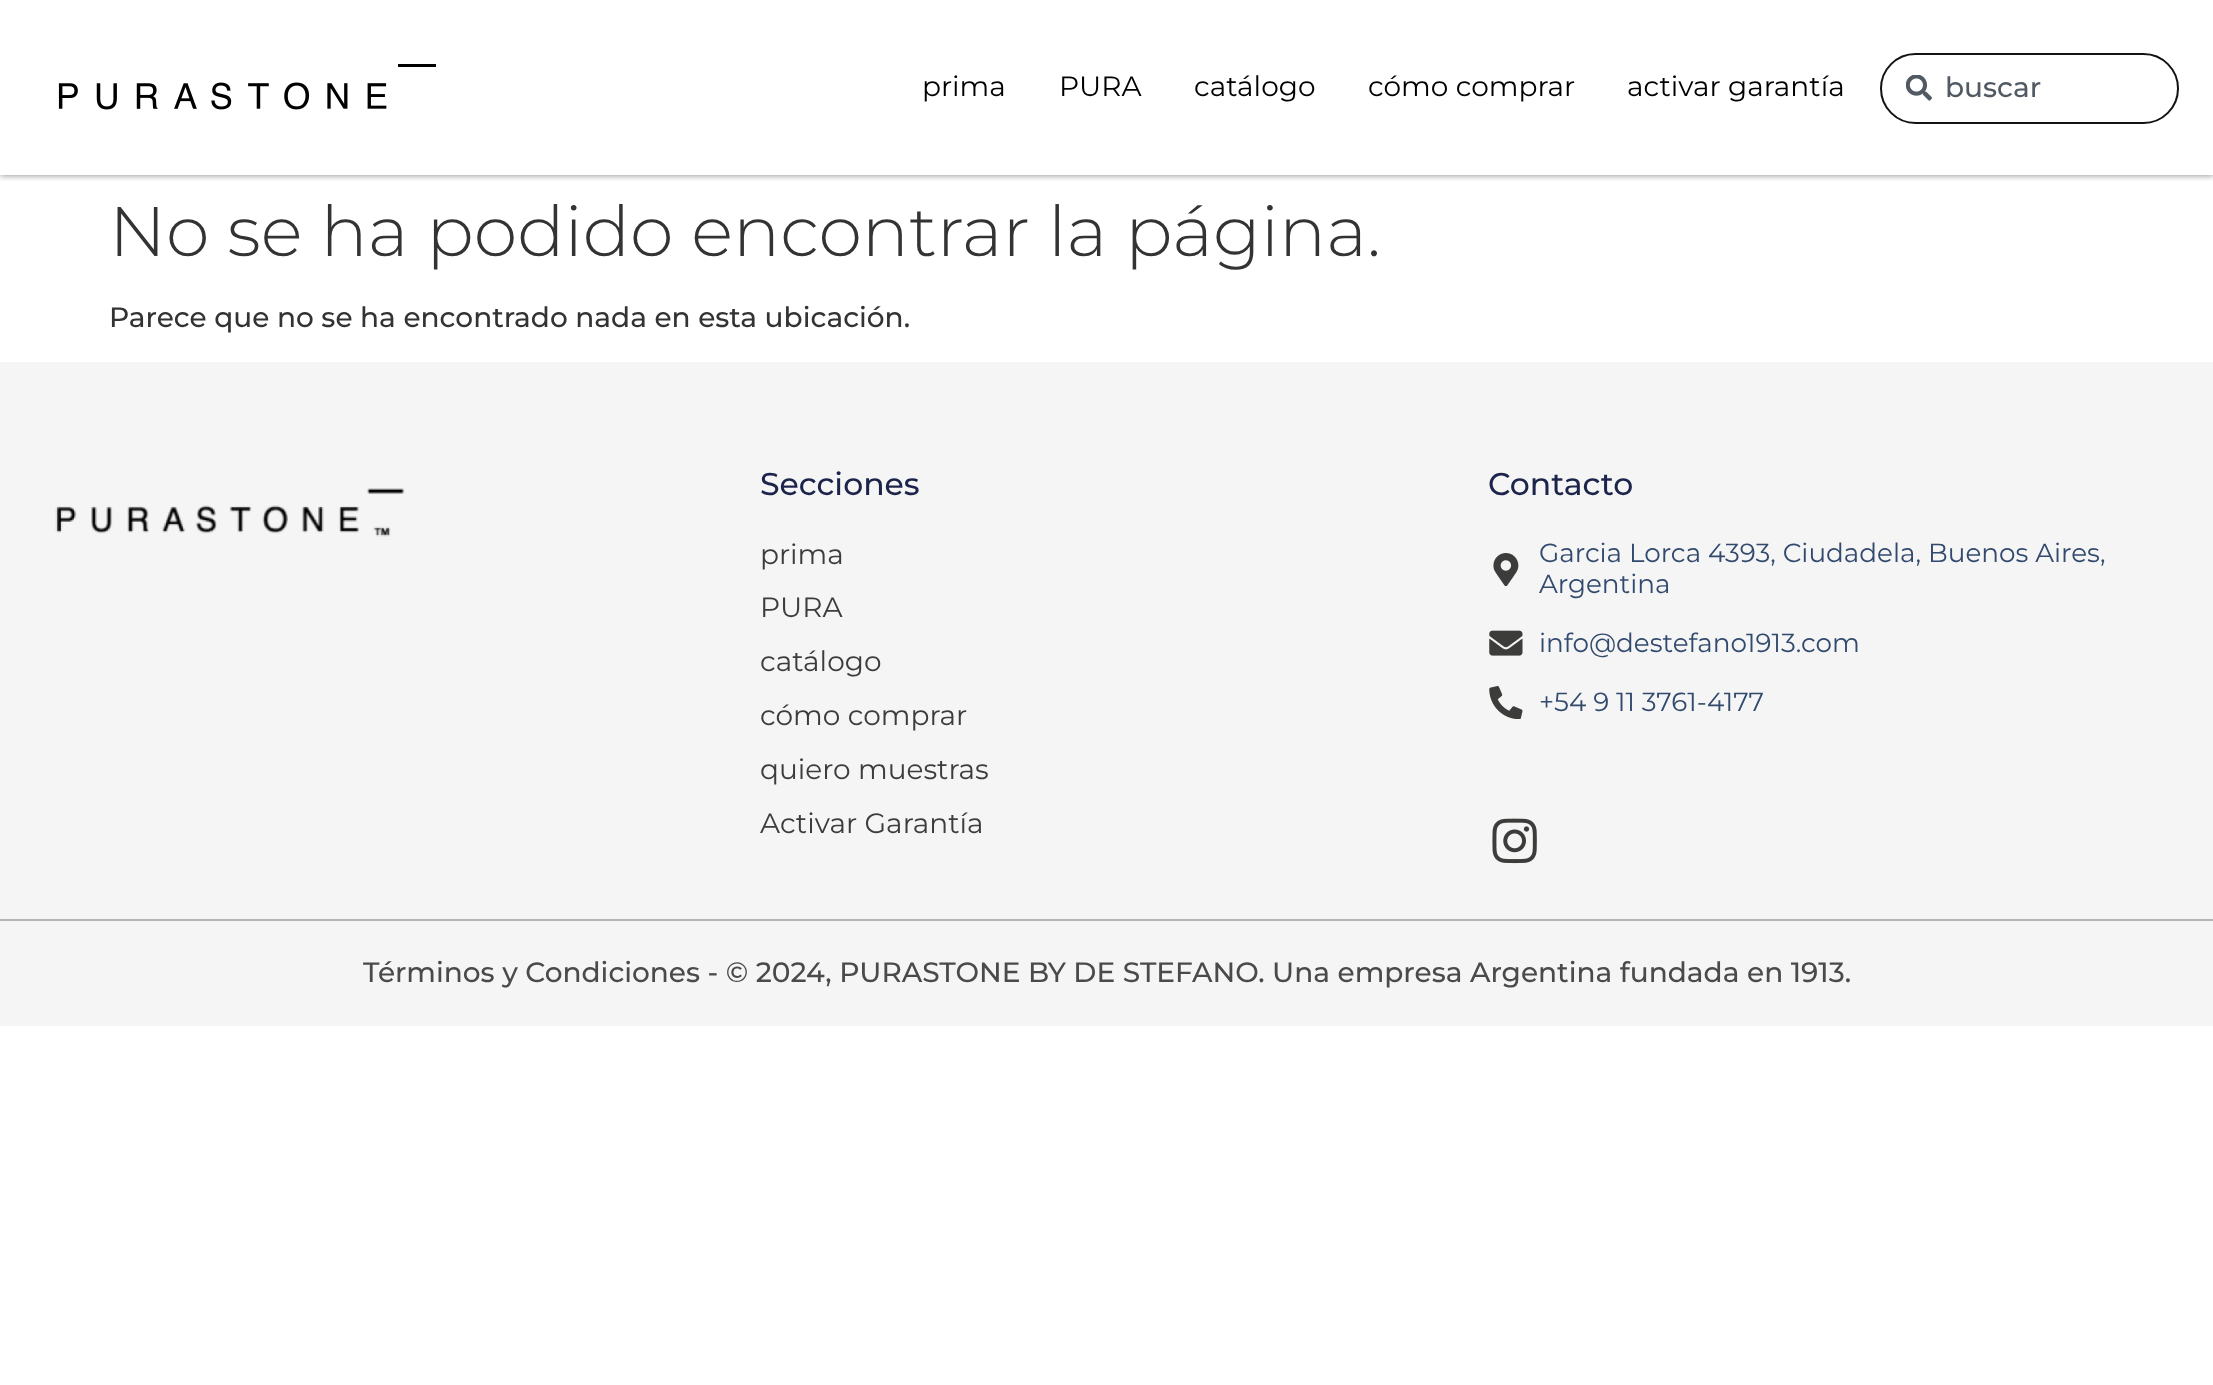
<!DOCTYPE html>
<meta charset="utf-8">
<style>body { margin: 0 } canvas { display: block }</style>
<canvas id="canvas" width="2213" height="1385"></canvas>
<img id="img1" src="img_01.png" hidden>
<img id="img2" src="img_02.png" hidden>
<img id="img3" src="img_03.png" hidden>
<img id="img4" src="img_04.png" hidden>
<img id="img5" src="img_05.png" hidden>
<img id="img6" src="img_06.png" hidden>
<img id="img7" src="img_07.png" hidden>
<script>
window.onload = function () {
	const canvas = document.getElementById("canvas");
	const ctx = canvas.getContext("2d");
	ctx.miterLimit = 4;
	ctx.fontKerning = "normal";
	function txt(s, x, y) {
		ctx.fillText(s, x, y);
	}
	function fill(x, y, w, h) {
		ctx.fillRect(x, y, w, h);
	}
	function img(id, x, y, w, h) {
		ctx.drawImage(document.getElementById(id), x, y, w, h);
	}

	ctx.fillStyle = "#FFFFFF";
	fill(0, 0, 2213, 1385);
	ctx.save();
	ctx.beginPath();
	ctx.rect(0, 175, 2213, 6);
	ctx.clip();
	ctx.fillStyle = "rgba(0, 0, 0, 0.5)";
	ctx.filter = "blur(3.5px)";
	ctx.beginPath();
	ctx.rect(0, 0, 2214, 175);
	ctx.fill();
	ctx.filter = "none";
	ctx.restore();
	img("img1", 58, 64, 378, 46);
	ctx.beginPath();
	ctx.roundRect(1881, 54, 297, 69, 34.5);
	ctx.strokeStyle = "#131313";
	ctx.lineWidth = 2;
	ctx.stroke();
	img("img2", 1906, 75, 26, 26);
	ctx.fillStyle = "#F5F5F5";
	fill(0, 362, 2213, 664);
	img("img3", 55, 488, 350, 49);
	img("img4", 1493, 553, 26, 33);
	img("img5", 1489, 630, 34, 26);
	img("img6", 1489, 686, 34, 33);
	img("img7", 1492, 818, 45, 46);
	ctx.fillStyle = "#B4B4B4";
	fill(0, 919, 2213, 2);
	ctx.font = "28px Montserrat";
	ctx.fillStyle = "#000000";
	txt("prima", 922, 96);
	txt("PURA", 1059, 96);
	txt("catálogo", 1194, 96);
	txt("cómo comprar", 1368, 96);
	txt("activar garantía", 1627, 96);
	ctx.font = "500 28px Montserrat";
	ctx.fillStyle = "#515962";
	txt("buscar", 1945, 97);
	ctx.font = "300 70px Montserrat";
	ctx.fillStyle = "#333333";
	txt("No se ha podido encontrar la página.", 109, 256);
	ctx.font = "500 28px Montserrat";
	txt("Parece que no se ha encontrado nada en esta ubicación.", 109, 327);
	ctx.font = "500 31.5px Montserrat";
	ctx.fillStyle = "#1C244B";
	txt("Secciones", 760, 495);
	ctx.font = "28px Montserrat";
	ctx.fillStyle = "#3C3C3B";
	txt("prima", 760, 564);
	txt("PURA", 760, 617);
	txt("catálogo", 760, 671);
	txt("cómo comprar", 760, 725);
	txt("quiero muestras", 760, 779);
	txt("Activar Garantía", 760, 833);
	ctx.font = "500 31.5px Montserrat";
	ctx.fillStyle = "#1C244B";
	txt("Contacto", 1488, 495);
	ctx.font = "26.25px Montserrat";
	ctx.fillStyle = "#324A6D";
	txt("Garcia Lorca 4393, Ciudadela, Buenos Aires,", 1539, 562);
	txt("Argentina", 1539, 593);
	txt("info@destefano1913.com", 1539, 652);
	txt("+54 9 11 3761-4177", 1539, 711);
	ctx.font = "500 28px Montserrat";
	ctx.fillStyle = "#4A4A4A";
	txt("Términos y Condiciones - © 2024, PURASTONE BY DE STEFANO. Una empresa Argentina fundada en 1913.", 363, 982);
};
</script>
